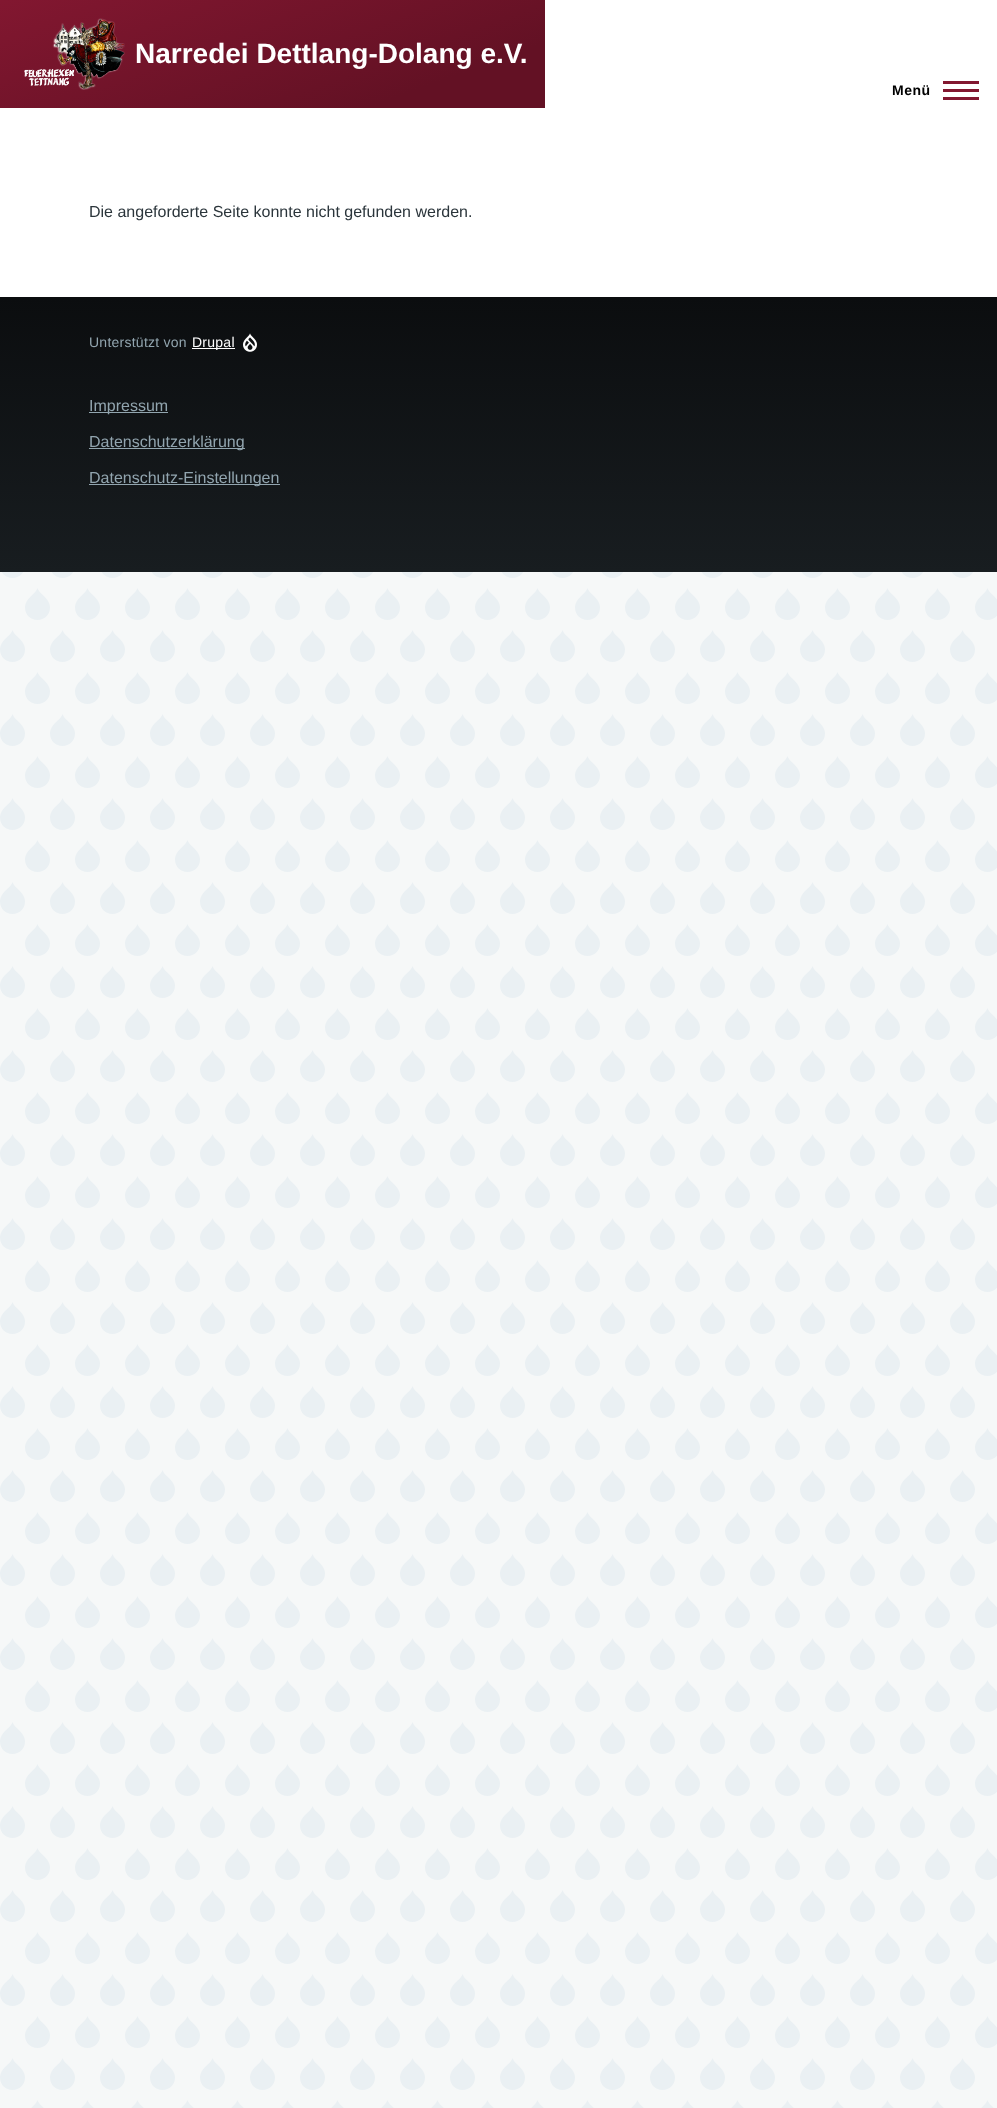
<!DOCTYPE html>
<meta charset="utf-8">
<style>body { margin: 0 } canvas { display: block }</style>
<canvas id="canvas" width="997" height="2108"></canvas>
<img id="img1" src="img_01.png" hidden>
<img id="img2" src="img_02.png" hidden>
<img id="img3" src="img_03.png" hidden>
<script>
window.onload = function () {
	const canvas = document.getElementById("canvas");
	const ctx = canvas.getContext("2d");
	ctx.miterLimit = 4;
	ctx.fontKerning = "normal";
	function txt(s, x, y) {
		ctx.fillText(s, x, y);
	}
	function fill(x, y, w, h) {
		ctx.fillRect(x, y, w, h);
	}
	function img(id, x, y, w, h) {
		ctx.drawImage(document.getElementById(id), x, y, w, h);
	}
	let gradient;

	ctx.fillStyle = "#F6F8F8";
	fill(0, 0, 997, 2108);
	img("img1", 0, 572, 997, 1536);
	ctx.fillStyle = "#FFFFFF";
	fill(0, 0, 997, 297);
	gradient = ctx.createLinearGradient(223, -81, 322, 189);
	gradient.addColorStop(0, "#821730");
	gradient.addColorStop(0.79, "#631124");
	ctx.fillStyle = gradient;
	fill(0, 0, 545, 108);
	img("img2", 24, 18, 101, 72);
	ctx.fillStyle = "#821730";
	fill(943, 89, 36, 3);
	fill(943, 81, 36, 3);
	fill(943, 97, 36, 3);
	gradient = ctx.createLinearGradient(499, 297, 499, 572);
	gradient.addColorStop(0, "#0B0D0F");
	gradient.addColorStop(1, "#181D20");
	ctx.fillStyle = gradient;
	fill(0, 297, 997, 275);
	ctx.fillStyle = "#FFFFFF";
	fill(192, 348, 43, 1);
	img("img3", 243, 333, 14, 19);
	ctx.fillStyle = "#92A5AF";
	fill(89, 412, 79, 1);
	fill(89, 448, 156, 1);
	fill(89, 484, 191, 1);
	ctx.font = "bold 28px Liberation Sans";
	ctx.fillStyle = "#FFFFFF";
	txt("Narredei Dettlang-Dolang e.V.", 135, 63);
	ctx.letterSpacing = "0.5px";
	ctx.font = "bold 14px Liberation Sans";
	ctx.fillStyle = "#000000";
	txt("Menü", 892, 95);
	ctx.letterSpacing = "0px";
	ctx.font = "16px Liberation Sans";
	ctx.fillStyle = "#2B353B";
	txt("Die angeforderte Seite konnte nicht gefunden werden.", 89, 217);
	ctx.letterSpacing = "0.25px";
	ctx.font = "14px Liberation Sans";
	ctx.fillStyle = "#92A5AF";
	txt("Unterstützt von", 89, 347);
	ctx.fillStyle = "#FFFFFF";
	txt("Drupal", 192, 347);
	ctx.letterSpacing = "0px";
	ctx.font = "16px Liberation Sans";
	ctx.fillStyle = "#92A5AF";
	txt("Impressum", 89, 411);
	txt("Datenschutzerklärung", 89, 447);
	txt("Datenschutz-Einstellungen", 89, 483);
};
</script>
